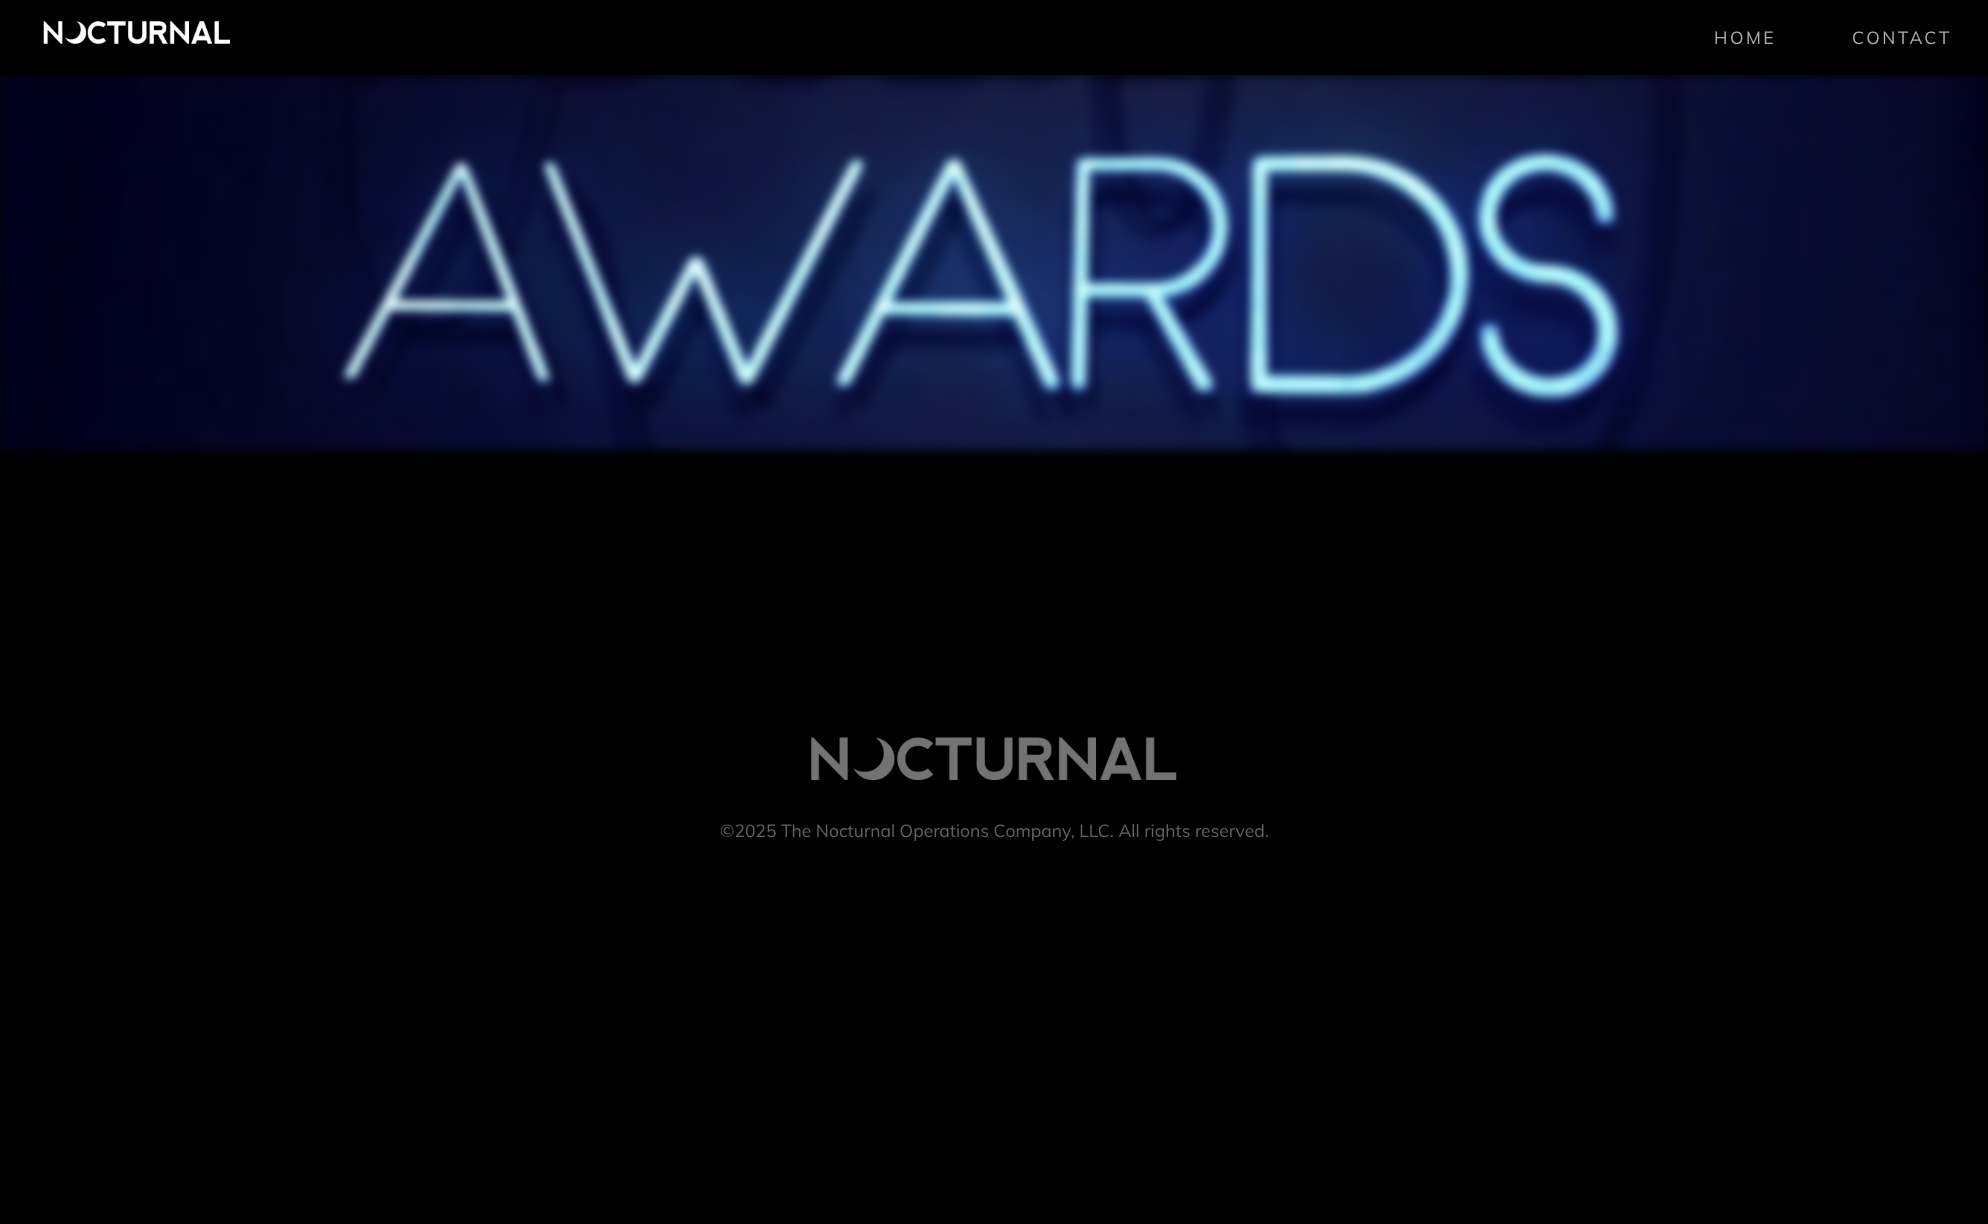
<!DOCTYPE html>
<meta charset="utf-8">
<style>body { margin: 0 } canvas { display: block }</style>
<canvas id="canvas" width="1988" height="1224"></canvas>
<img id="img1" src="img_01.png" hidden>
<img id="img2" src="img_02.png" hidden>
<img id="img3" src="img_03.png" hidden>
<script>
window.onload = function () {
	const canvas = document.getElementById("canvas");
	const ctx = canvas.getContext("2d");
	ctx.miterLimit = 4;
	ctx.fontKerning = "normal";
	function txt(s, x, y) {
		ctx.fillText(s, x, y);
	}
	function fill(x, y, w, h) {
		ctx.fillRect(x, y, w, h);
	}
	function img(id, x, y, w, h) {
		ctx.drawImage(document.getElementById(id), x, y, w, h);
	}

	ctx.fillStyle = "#000000";
	fill(0, 0, 1988, 1224);
	img("img1", 43, 21, 187, 23);
	img("img2", 0, 75, 1988, 382);
	img("img3", 811, 737, 366, 43);
	ctx.letterSpacing = "2.5px";
	ctx.font = "17.5px Muli";
	ctx.fillStyle = "#AFAFAF";
	txt("HOME", 1714, 44);
	txt("CONTACT", 1852, 44);
	ctx.letterSpacing = "0px";
	ctx.fillStyle = "#626262";
	txt("©2025 The Nocturnal Operations Company, LLC. All rights reserved.", 720, 837);
};
</script>
